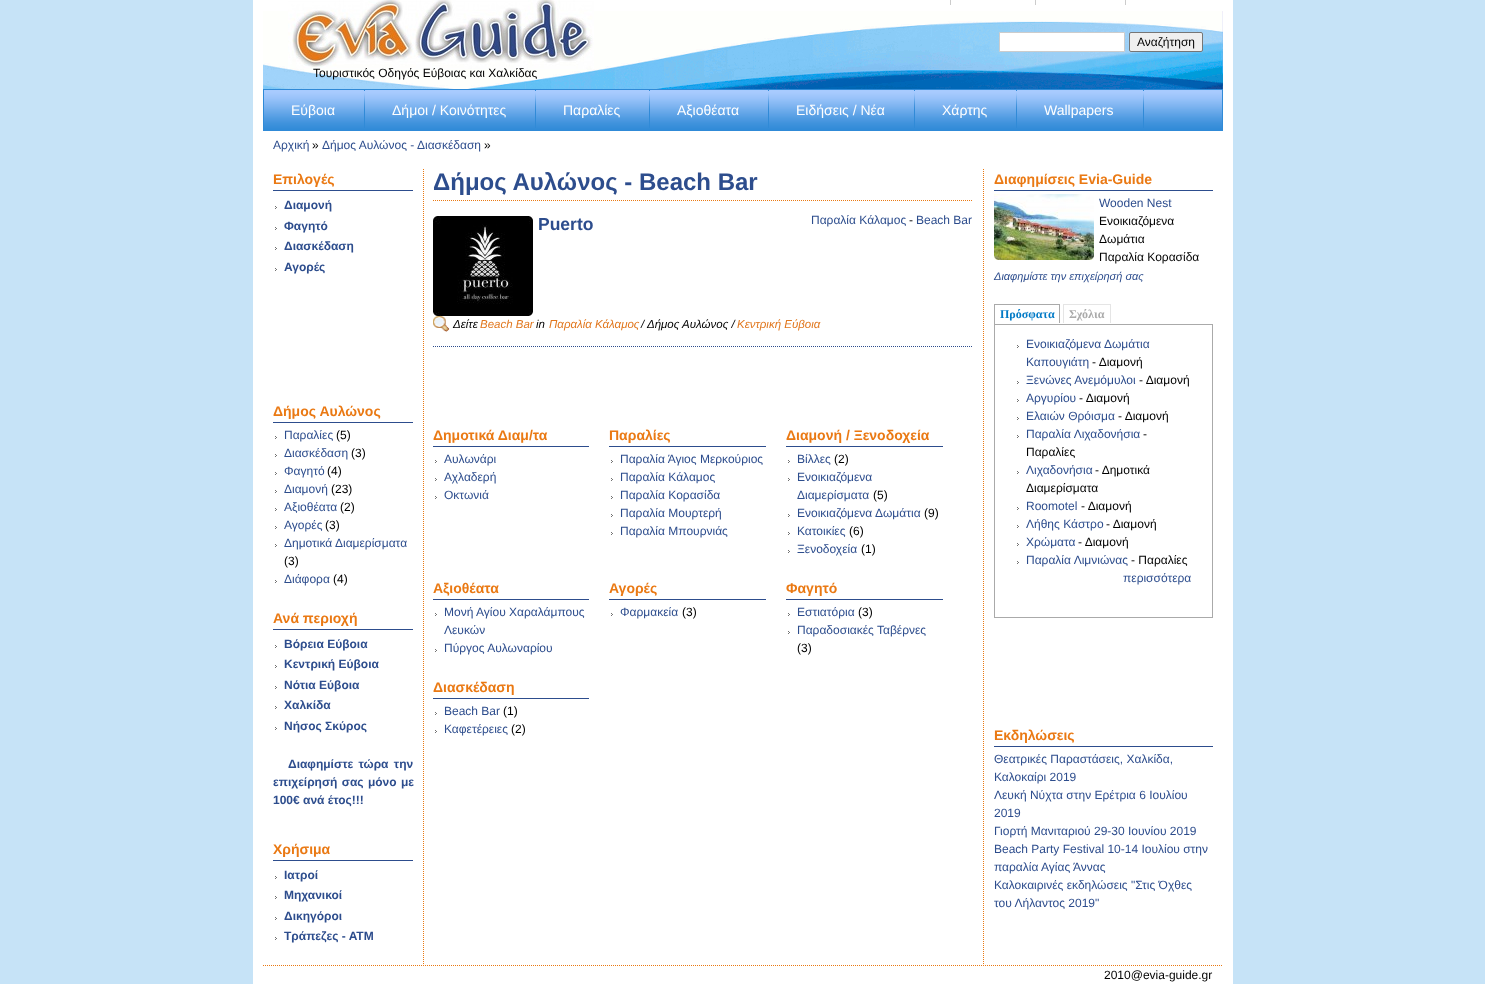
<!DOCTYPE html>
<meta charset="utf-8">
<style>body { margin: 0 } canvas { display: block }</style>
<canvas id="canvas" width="1485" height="984"></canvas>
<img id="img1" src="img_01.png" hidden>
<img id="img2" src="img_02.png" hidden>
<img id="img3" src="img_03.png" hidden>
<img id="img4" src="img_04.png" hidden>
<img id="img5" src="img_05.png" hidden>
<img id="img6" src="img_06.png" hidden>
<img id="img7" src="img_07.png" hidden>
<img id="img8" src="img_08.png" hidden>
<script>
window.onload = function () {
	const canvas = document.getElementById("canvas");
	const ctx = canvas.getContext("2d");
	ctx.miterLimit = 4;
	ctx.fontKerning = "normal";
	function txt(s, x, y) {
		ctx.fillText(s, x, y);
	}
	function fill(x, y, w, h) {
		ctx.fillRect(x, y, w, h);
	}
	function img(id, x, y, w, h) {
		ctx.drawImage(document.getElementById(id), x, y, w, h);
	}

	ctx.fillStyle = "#C6E3F7";
	fill(0, 0, 1485, 984);
	ctx.fillStyle = "#FFFFFF";
	fill(253, 0, 980, 984);
	img("img1", 263, 11, 960, 78);
	ctx.fillStyle = "#CCCCCC";
	fill(950, 0, 1, 5);
	fill(1035, 0, 1, 5);
	fill(1125, 0, 1, 5);
	ctx.fillStyle = "#FFFFFF";
	ctx.beginPath();
	ctx.rect(999.5, 32.5, 125, 19);
	ctx.fill();
	ctx.strokeStyle = "#CCCCCC";
	ctx.stroke();
	ctx.fillStyle = "#EFEFEF";
	ctx.beginPath();
	ctx.roundRect(1129.5, 32.5, 73, 19, 1.5);
	ctx.fill();
	ctx.strokeStyle = "#767676";
	ctx.stroke();
	img("img2", 288, 0, 306, 69);
	img("img3", 264, 90, 958, 40);
	ctx.strokeStyle = "#308AD7";
	ctx.strokeRect(263.5, 89.5, 959, 41);
	img("img4", 364, 90, 1, 38);
	img("img4", 535, 90, 1, 38);
	img("img4", 649, 90, 1, 38);
	img("img4", 768, 90, 1, 38);
	img("img4", 914, 90, 1, 38);
	img("img4", 1016, 90, 1, 38);
	img("img4", 1143, 90, 1, 38);
	ctx.beginPath();
	ctx.moveTo(423.5, 169);
	ctx.lineTo(423.5, 965);
	ctx.strokeStyle = "#EA7913";
	ctx.setLineDash([1, 1]);
	ctx.stroke();
	ctx.fillStyle = "#2D4D8D";
	fill(273, 190, 140, 1);
	img("img5", 275, 206, 2, 3);
	img("img5", 275, 227, 2, 3);
	img("img5", 275, 247, 2, 3);
	img("img5", 275, 268, 2, 3);
	fill(273, 422, 140, 1);
	img("img5", 275, 436, 2, 3);
	img("img5", 275, 454, 2, 3);
	img("img5", 275, 472, 2, 3);
	img("img5", 275, 490, 2, 3);
	img("img5", 275, 508, 2, 3);
	img("img5", 275, 526, 2, 3);
	img("img5", 275, 544, 2, 3);
	img("img5", 275, 580, 2, 3);
	fill(273, 629, 140, 1);
	img("img5", 275, 645, 2, 3);
	img("img5", 275, 665, 2, 3);
	img("img5", 275, 686, 2, 3);
	img("img5", 275, 706, 2, 3);
	img("img5", 275, 727, 2, 3);
	fill(273, 860, 140, 1);
	img("img5", 275, 876, 2, 3);
	img("img5", 275, 896, 2, 3);
	img("img5", 275, 917, 2, 3);
	img("img5", 275, 937, 2, 3);
	ctx.beginPath();
	ctx.moveTo(433, 200.5);
	ctx.lineTo(973, 200.5);
	ctx.stroke();
	ctx.beginPath();
	ctx.moveTo(433, 346.5);
	ctx.lineTo(973, 346.5);
	ctx.strokeStyle = "#2D4D8D";
	ctx.stroke();
	img("img6", 433, 216, 100, 100);
	img("img7", 433, 316, 17, 16);
	fill(433, 446, 156, 1);
	img("img5", 435, 460, 2, 3);
	img("img5", 435, 478, 2, 3);
	img("img5", 435, 496, 2, 3);
	fill(609, 446, 157, 1);
	img("img5", 611, 460, 2, 3);
	img("img5", 611, 478, 2, 3);
	img("img5", 611, 496, 2, 3);
	img("img5", 611, 514, 2, 3);
	img("img5", 611, 532, 2, 3);
	fill(786, 446, 157, 1);
	img("img5", 788, 460, 2, 3);
	img("img5", 788, 478, 2, 3);
	img("img5", 788, 514, 2, 3);
	img("img5", 788, 532, 2, 3);
	img("img5", 788, 550, 2, 3);
	fill(433, 599, 156, 1);
	img("img5", 435, 613, 2, 3);
	img("img5", 435, 649, 2, 3);
	fill(609, 599, 157, 1);
	img("img5", 611, 613, 2, 3);
	fill(786, 599, 157, 1);
	img("img5", 788, 613, 2, 3);
	img("img5", 788, 631, 2, 3);
	fill(433, 698, 156, 1);
	img("img5", 435, 712, 2, 3);
	img("img5", 435, 730, 2, 3);
	ctx.beginPath();
	ctx.moveTo(983.5, 169);
	ctx.lineTo(983.5, 965);
	ctx.strokeStyle = "#EA7913";
	ctx.stroke();
	fill(994, 190, 219, 1);
	img("img8", 994, 194, 100, 66);
	ctx.fillStyle = "#AAAAAA";
	fill(994, 324, 219, 1);
	fill(994, 304, 66, 1);
	fill(1059, 304, 1, 20);
	ctx.fillStyle = "#FFFFFF";
	fill(1059, 323, 1, 1);
	ctx.fillStyle = "#AAAAAA";
	fill(994, 304, 1, 20);
	ctx.fillStyle = "#E5E5E5";
	fill(1063, 304, 48, 1);
	fill(1110, 304, 1, 19);
	fill(1063, 304, 1, 19);
	ctx.fillStyle = "#AAAAAA";
	fill(1212, 325, 1, 293);
	fill(994, 617, 219, 1);
	fill(994, 325, 1, 293);
	img("img5", 1017, 345, 2, 3);
	img("img5", 1017, 381, 2, 3);
	img("img5", 1017, 399, 2, 3);
	img("img5", 1017, 417, 2, 3);
	img("img5", 1017, 435, 2, 3);
	img("img5", 1017, 471, 2, 3);
	img("img5", 1017, 507, 2, 3);
	img("img5", 1017, 525, 2, 3);
	img("img5", 1017, 543, 2, 3);
	img("img5", 1017, 561, 2, 3);
	ctx.fillStyle = "#2D4D8D";
	fill(994, 746, 219, 1);
	ctx.beginPath();
	ctx.moveTo(263, 965.5);
	ctx.lineTo(1223, 965.5);
	ctx.stroke();
	ctx.font = "12px Liberation Sans";
	ctx.fillStyle = "#000000";
	txt("Αναζήτηση", 1137, 46);
	txt("Τουριστικός Οδηγός Εύβοιας και Χαλκίδας", 313, 77);
	ctx.font = "14px Liberation Sans";
	ctx.fillStyle = "#FFFFFF";
	txt("Εύβοια", 291, 115);
	txt("Δήμοι / Κοινότητες", 392, 115);
	txt("Παραλίες", 563, 115);
	txt("Αξιοθέατα", 677, 115);
	txt("Ειδήσεις / Νέα", 796, 115);
	txt("Χάρτης", 942, 115);
	txt("Wallpapers", 1044, 115);
	ctx.font = "12px Liberation Sans";
	ctx.fillStyle = "#2D4D8D";
	txt("Αρχική", 273, 149);
	ctx.fillStyle = "#000000";
	txt("»", 312, 149);
	ctx.fillStyle = "#2D4D8D";
	txt("Δήμος Αυλώνος - Διασκέδαση", 322, 149);
	ctx.fillStyle = "#000000";
	txt("»", 484, 149);
	ctx.font = "bold 14px Liberation Sans";
	ctx.fillStyle = "#EA7913";
	txt("Επιλογές", 273, 184);
	ctx.font = "bold 12px Liberation Sans";
	ctx.fillStyle = "#2D4D8D";
	txt("Διαμονή", 284, 209);
	txt("Φαγητό", 284, 230);
	txt("Διασκέδαση", 284, 250);
	txt("Αγορές", 284, 271);
	ctx.font = "bold 14px Liberation Sans";
	ctx.fillStyle = "#EA7913";
	txt("Δήμος Αυλώνος", 273, 416);
	ctx.font = "12px Liberation Sans";
	ctx.fillStyle = "#2D4D8D";
	txt("Παραλίες", 284, 439);
	ctx.fillStyle = "#000000";
	txt("(5)", 336, 439);
	ctx.fillStyle = "#2D4D8D";
	txt("Διασκέδαση", 284, 457);
	ctx.fillStyle = "#000000";
	txt("(3)", 351, 457);
	ctx.fillStyle = "#2D4D8D";
	txt("Φαγητό", 284, 475);
	ctx.fillStyle = "#000000";
	txt("(4)", 327, 475);
	ctx.fillStyle = "#2D4D8D";
	txt("Διαμονή", 284, 493);
	ctx.fillStyle = "#000000";
	txt("(23)", 331, 493);
	ctx.fillStyle = "#2D4D8D";
	txt("Αξιοθέατα", 284, 511);
	ctx.fillStyle = "#000000";
	txt("(2)", 340, 511);
	ctx.fillStyle = "#2D4D8D";
	txt("Αγορές", 284, 529);
	ctx.fillStyle = "#000000";
	txt("(3)", 325, 529);
	ctx.fillStyle = "#2D4D8D";
	txt("Δημοτικά Διαμερίσματα", 284, 547);
	ctx.fillStyle = "#000000";
	txt("(3)", 284, 565);
	ctx.fillStyle = "#2D4D8D";
	txt("Διάφορα", 284, 583);
	ctx.fillStyle = "#000000";
	txt("(4)", 333, 583);
	ctx.font = "bold 14px Liberation Sans";
	ctx.fillStyle = "#EA7913";
	txt("Ανά περιοχή", 273, 623);
	ctx.font = "bold 12px Liberation Sans";
	ctx.fillStyle = "#2D4D8D";
	txt("Βόρεια Εύβοια", 284, 648);
	txt("Κεντρική Εύβοια", 284, 668);
	txt("Νότια Εύβοια", 284, 689);
	txt("Χαλκίδα", 284, 709);
	txt("Νήσος Σκύρος", 284, 730);
	ctx.wordSpacing = "2px";
	txt("Διαφημίστε τώρα την", 288, 768);
	ctx.wordSpacing = "1px";
	txt("επιχείρησή σας μόνο με", 273, 786);
	ctx.wordSpacing = "0px";
	txt("100€ ανά έτος!!!", 273, 804);
	ctx.font = "bold 14px Liberation Sans";
	ctx.fillStyle = "#EA7913";
	txt("Χρήσιμα", 273, 854);
	ctx.font = "bold 12px Liberation Sans";
	ctx.fillStyle = "#2D4D8D";
	txt("Ιατροί", 284, 879);
	txt("Μηχανικοί", 284, 899);
	txt("Δικηγόροι", 284, 920);
	txt("Τράπεζες - ΑΤΜ", 284, 940);
	ctx.font = "bold 24px Liberation Sans";
	txt("Δήμος Αυλώνος - Beach Bar", 433, 190);
	ctx.font = "bold 17.5px Liberation Sans";
	txt("Puerto", 538, 230);
	ctx.font = "12px Liberation Sans";
	txt("Παραλία Κάλαμος", 811, 224);
	ctx.fillStyle = "#000000";
	txt("-", 909, 224);
	ctx.fillStyle = "#2D4D8D";
	txt("Beach Bar", 916, 224);
	ctx.font = "italic 11.5px Liberation Sans";
	ctx.fillStyle = "#000000";
	txt("Δείτε", 453, 328);
	ctx.fillStyle = "#E1771E";
	txt("Beach Bar", 480, 328);
	ctx.fillStyle = "#000000";
	txt("in", 536, 328);
	ctx.fillStyle = "#E1771E";
	txt("Παραλία Κάλαμος", 549, 328);
	ctx.fillStyle = "#000000";
	txt("/ Δήμος Αυλώνος /", 641, 328);
	ctx.fillStyle = "#E1771E";
	txt("Κεντρική Εύβοια", 737, 328);
	ctx.font = "bold 14px Liberation Sans";
	ctx.fillStyle = "#EA7913";
	txt("Δημοτικά Διαμ/τα", 433, 440);
	ctx.font = "12px Liberation Sans";
	ctx.fillStyle = "#2D4D8D";
	txt("Αυλωνάρι", 444, 463);
	txt("Αχλαδερή", 444, 481);
	txt("Οκτωνιά", 444, 499);
	ctx.font = "bold 14px Liberation Sans";
	ctx.fillStyle = "#EA7913";
	txt("Παραλίες", 609, 440);
	ctx.font = "12px Liberation Sans";
	ctx.fillStyle = "#2D4D8D";
	txt("Παραλία Άγιος Μερκούριος", 620, 463);
	txt("Παραλία Κάλαμος", 620, 481);
	txt("Παραλία Κορασίδα", 620, 499);
	txt("Παραλία Μουρτερή", 620, 517);
	txt("Παραλία Μπουρνιάς", 620, 535);
	ctx.font = "bold 14px Liberation Sans";
	ctx.fillStyle = "#EA7913";
	txt("Διαμονή / Ξενοδοχεία", 786, 440);
	ctx.font = "12px Liberation Sans";
	ctx.fillStyle = "#2D4D8D";
	txt("Βίλλες", 797, 463);
	ctx.fillStyle = "#000000";
	txt("(2)", 834, 463);
	ctx.fillStyle = "#2D4D8D";
	txt("Ενοικιαζόμενα", 797, 481);
	txt("Διαμερίσματα", 797, 499);
	ctx.fillStyle = "#000000";
	txt("(5)", 873, 499);
	ctx.fillStyle = "#2D4D8D";
	txt("Ενοικιαζόμενα Δωμάτια", 797, 517);
	ctx.fillStyle = "#000000";
	txt("(9)", 924, 517);
	ctx.fillStyle = "#2D4D8D";
	txt("Κατοικίες", 797, 535);
	ctx.fillStyle = "#000000";
	txt("(6)", 849, 535);
	ctx.fillStyle = "#2D4D8D";
	txt("Ξενοδοχεία", 797, 553);
	ctx.fillStyle = "#000000";
	txt("(1)", 861, 553);
	ctx.font = "bold 14px Liberation Sans";
	ctx.fillStyle = "#EA7913";
	txt("Αξιοθέατα", 433, 593);
	ctx.font = "12px Liberation Sans";
	ctx.fillStyle = "#2D4D8D";
	txt("Μονή Αγίου Χαραλάμπους", 444, 616);
	txt("Λευκών", 444, 634);
	txt("Πύργος Αυλωναρίου", 444, 652);
	ctx.font = "bold 14px Liberation Sans";
	ctx.fillStyle = "#EA7913";
	txt("Αγορές", 609, 593);
	ctx.font = "12px Liberation Sans";
	ctx.fillStyle = "#2D4D8D";
	txt("Φαρμακεία", 620, 616);
	ctx.fillStyle = "#000000";
	txt("(3)", 682, 616);
	ctx.font = "bold 14px Liberation Sans";
	ctx.fillStyle = "#EA7913";
	txt("Φαγητό", 786, 593);
	ctx.font = "12px Liberation Sans";
	ctx.fillStyle = "#2D4D8D";
	txt("Εστιατόρια", 797, 616);
	ctx.fillStyle = "#000000";
	txt("(3)", 858, 616);
	ctx.fillStyle = "#2D4D8D";
	txt("Παραδοσιακές Ταβέρνες", 797, 634);
	ctx.fillStyle = "#000000";
	txt("(3)", 797, 652);
	ctx.font = "bold 14px Liberation Sans";
	ctx.fillStyle = "#EA7913";
	txt("Διασκέδαση", 433, 692);
	ctx.font = "12px Liberation Sans";
	ctx.fillStyle = "#2D4D8D";
	txt("Beach Bar", 444, 715);
	ctx.fillStyle = "#000000";
	txt("(1)", 503, 715);
	ctx.fillStyle = "#2D4D8D";
	txt("Καφετέρειες", 444, 733);
	ctx.fillStyle = "#000000";
	txt("(2)", 511, 733);
	ctx.font = "bold 14px Liberation Sans";
	ctx.fillStyle = "#EA7913";
	txt("Διαφημίσεις Evia-Guide", 994, 184);
	ctx.font = "12px Liberation Sans";
	ctx.fillStyle = "#2D4D8D";
	txt("Wooden Nest", 1099, 207);
	ctx.fillStyle = "#000000";
	txt("Ενοικιαζόμενα", 1099, 225);
	txt("Δωμάτια", 1099, 243);
	txt("Παραλία Κορασίδα", 1099, 261);
	ctx.font = "italic 11px Liberation Sans";
	ctx.fillStyle = "#2D4D8D";
	txt("Διαφημίστε την επιχείρησή σας", 994, 280);
	ctx.font = "bold 12px Liberation Serif";
	ctx.fillStyle = "#027AC6";
	txt("Πρόσφατα", 1000, 318);
	ctx.fillStyle = "#AAAAAA";
	txt("Σχόλια", 1069, 318);
	ctx.font = "12px Liberation Sans";
	ctx.fillStyle = "#2D4D8D";
	txt("Ενοικιαζόμενα Δωμάτια", 1026, 348);
	txt("Καπουγιάτη", 1026, 366);
	ctx.fillStyle = "#000000";
	txt("- Διαμονή", 1092, 366);
	ctx.fillStyle = "#2D4D8D";
	txt("Ξενώνες Ανεμόμυλοι", 1026, 384);
	ctx.fillStyle = "#000000";
	txt("- Διαμονή", 1139, 384);
	ctx.fillStyle = "#2D4D8D";
	txt("Αργυρίου", 1026, 402);
	ctx.fillStyle = "#000000";
	txt("- Διαμονή", 1079, 402);
	ctx.fillStyle = "#2D4D8D";
	txt("Ελαιών Θρόισμα", 1026, 420);
	ctx.fillStyle = "#000000";
	txt("- Διαμονή", 1118, 420);
	ctx.fillStyle = "#2D4D8D";
	txt("Παραλία Λιχαδονήσια", 1026, 438);
	ctx.fillStyle = "#000000";
	txt("-", 1143, 438);
	txt("Παραλίες", 1026, 456);
	ctx.fillStyle = "#2D4D8D";
	txt("Λιχαδονήσια", 1026, 474);
	ctx.fillStyle = "#000000";
	txt("- Δημοτικά", 1095, 474);
	txt("Διαμερίσματα", 1026, 492);
	ctx.fillStyle = "#2D4D8D";
	txt("Roomotel", 1026, 510);
	ctx.fillStyle = "#000000";
	txt("- Διαμονή", 1081, 510);
	ctx.fillStyle = "#2D4D8D";
	txt("Λήθης Κάστρο", 1026, 528);
	ctx.fillStyle = "#000000";
	txt("- Διαμονή", 1106, 528);
	ctx.fillStyle = "#2D4D8D";
	txt("Χρώματα", 1026, 546);
	ctx.fillStyle = "#000000";
	txt("- Διαμονή", 1078, 546);
	ctx.fillStyle = "#2D4D8D";
	txt("Παραλία Λιμνιώνας", 1026, 564);
	ctx.fillStyle = "#000000";
	txt("- Παραλίες", 1131, 564);
	ctx.fillStyle = "#2D4D8D";
	txt("περισσότερα", 1123, 582);
	ctx.font = "bold 14px Liberation Sans";
	ctx.fillStyle = "#EA7913";
	txt("Εκδηλώσεις", 994, 740);
	ctx.font = "12px Liberation Sans";
	ctx.fillStyle = "#2D4D8D";
	txt("Θεατρικές Παραστάσεις, Χαλκίδα,", 994, 763);
	txt("Καλοκαίρι 2019", 994, 781);
	txt("Λευκή Νύχτα στην Ερέτρια 6 Ιουλίου", 994, 799);
	txt("2019", 994, 817);
	txt("Γιορτή Μανιταριού 29-30 Ιουνίου 2019", 994, 835);
	txt("Beach Party Festival 10-14 Ιουλίου στην", 994, 853);
	txt("παραλία Αγίας Άννας", 994, 871);
	txt("Καλοκαιρινές εκδηλώσεις \"Στις Όχθες", 994, 889);
	txt("του Λήλαντος 2019\"", 994, 907);
	ctx.fillStyle = "#000000";
	txt("2010@evia-guide.gr", 1104, 979);
};
</script>
